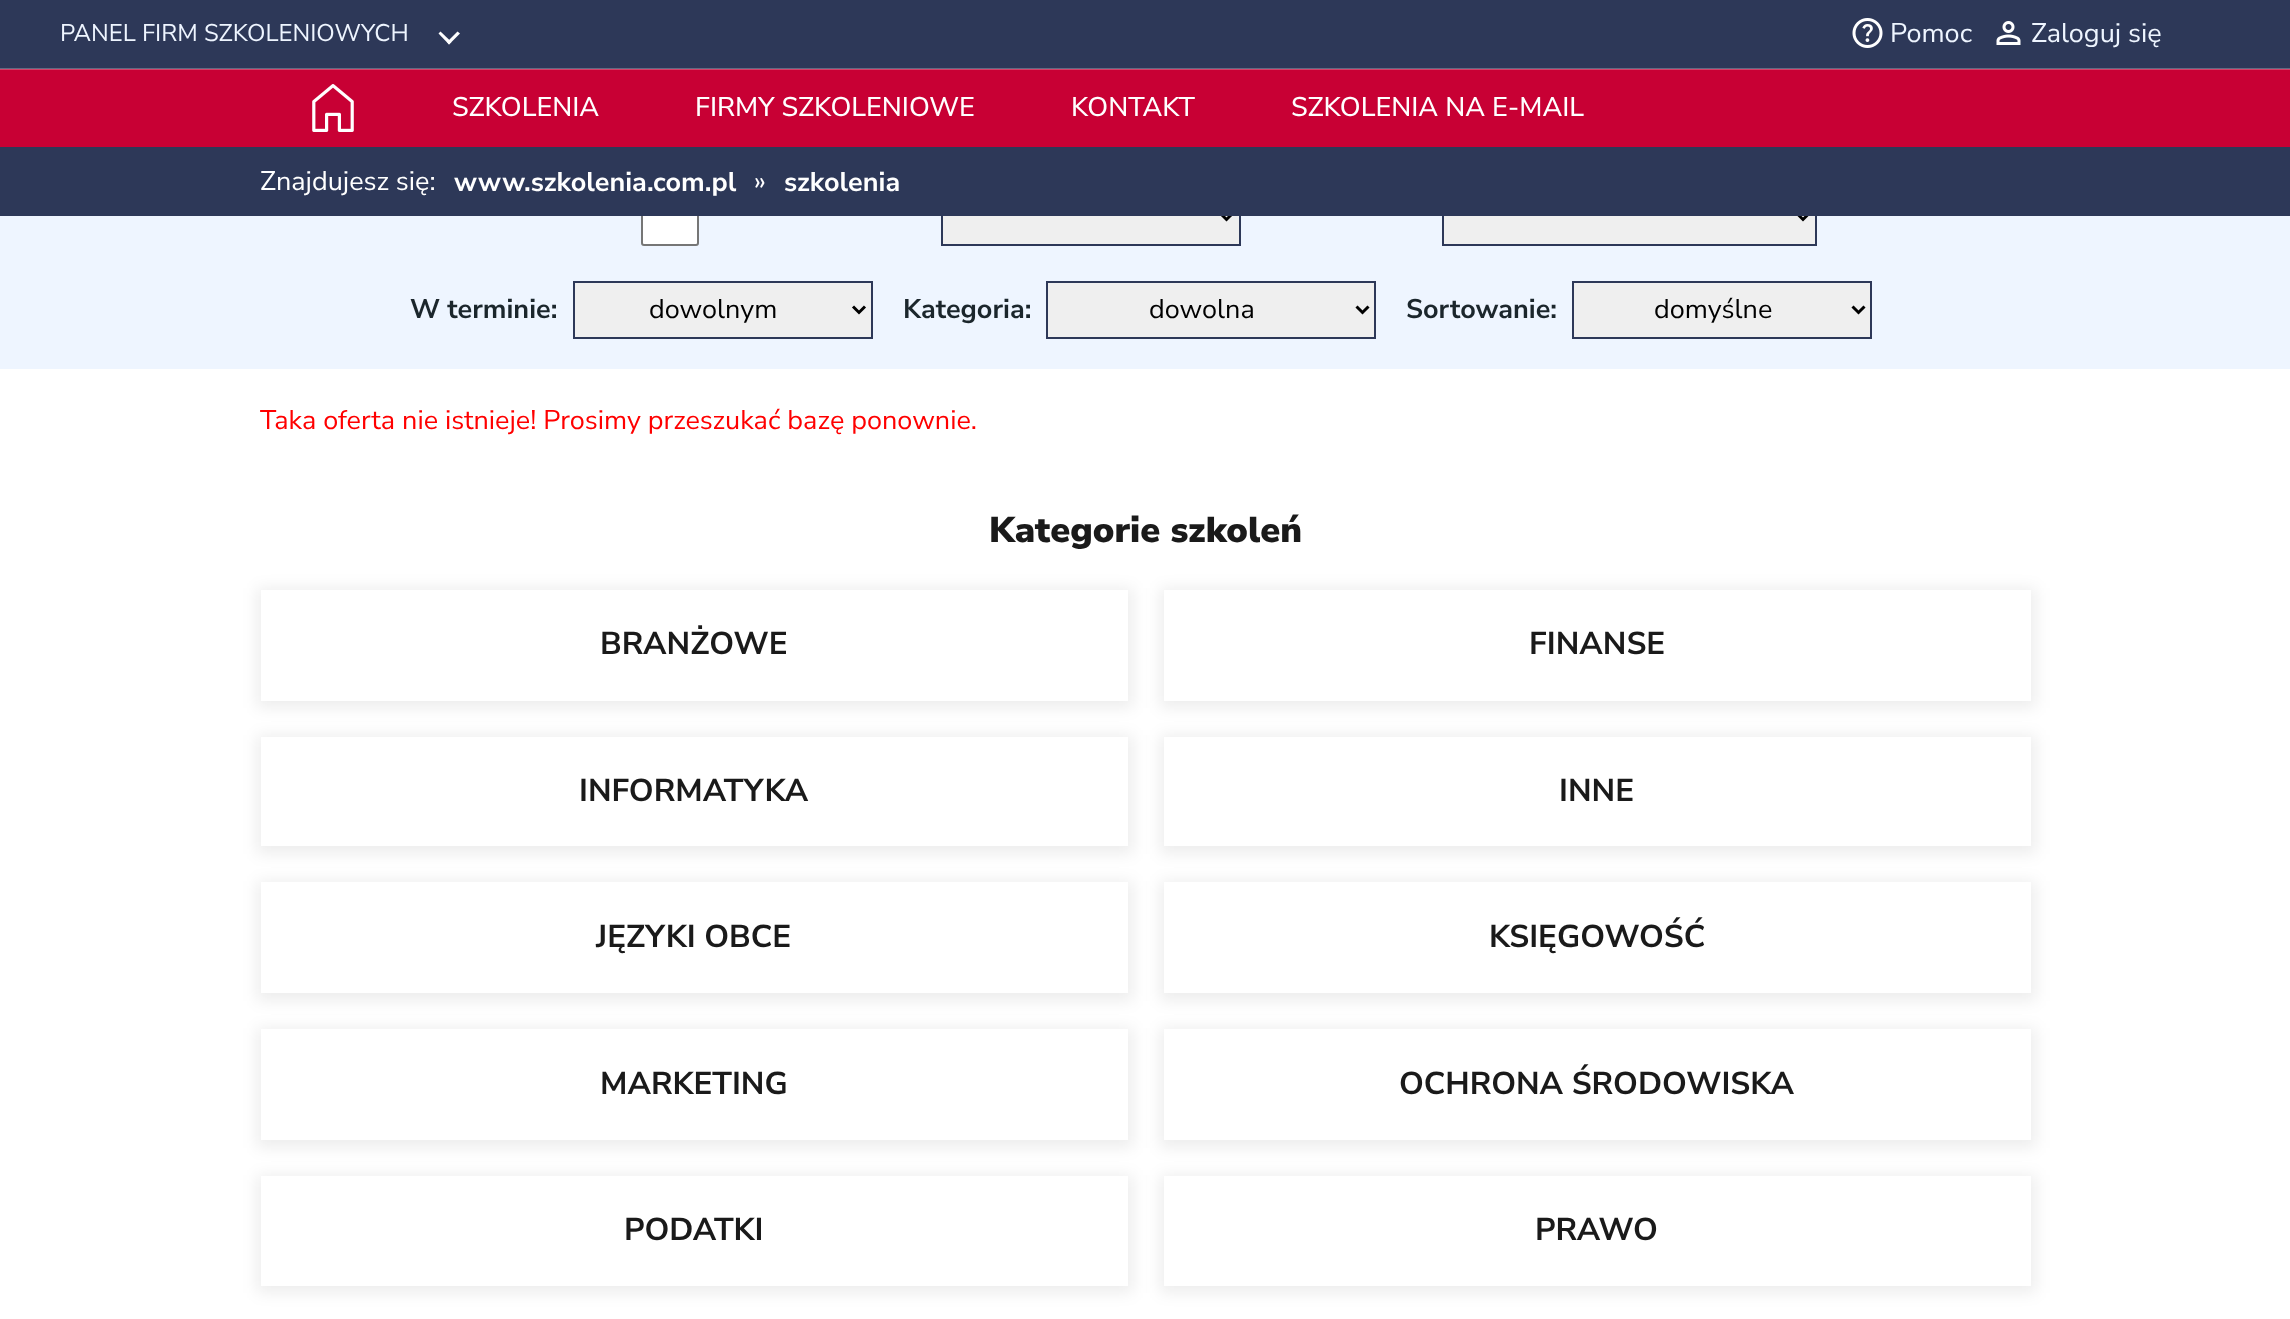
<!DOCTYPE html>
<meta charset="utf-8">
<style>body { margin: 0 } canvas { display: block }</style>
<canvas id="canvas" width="2290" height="1319"></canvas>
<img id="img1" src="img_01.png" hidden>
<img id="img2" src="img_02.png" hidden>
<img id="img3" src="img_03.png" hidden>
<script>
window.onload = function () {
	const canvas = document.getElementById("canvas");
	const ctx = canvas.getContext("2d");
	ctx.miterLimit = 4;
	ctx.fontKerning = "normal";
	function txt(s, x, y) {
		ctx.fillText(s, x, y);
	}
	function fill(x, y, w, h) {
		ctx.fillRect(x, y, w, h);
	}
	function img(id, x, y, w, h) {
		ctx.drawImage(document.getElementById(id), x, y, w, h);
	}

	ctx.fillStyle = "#FFFFFF";
	fill(0, 0, 2290, 1319);
	ctx.fillStyle = "#2D3858";
	fill(0, 0, 2290, 69);
	ctx.fillStyle = "#C80034";
	fill(0, 69, 2290, 78);
	ctx.fillStyle = "rgba(255, 255, 255, 0.25)";
	fill(0, 68, 2290, 2);
	ctx.fillStyle = "#FFFFFF";
	ctx.beginPath();
	ctx.moveTo(457.5, 31.5);
	ctx.lineTo(460, 33.5);
	ctx.lineTo(449, 44.5);
	ctx.lineTo(447, 42);
	ctx.closePath();
	ctx.fill();
	ctx.beginPath();
	ctx.moveTo(440.5, 31.5);
	ctx.lineTo(451.5, 42);
	ctx.lineTo(449, 44.5);
	ctx.lineTo(438.5, 33.5);
	ctx.closePath();
	ctx.fill();
	img("img1", 1852, 18, 31, 30);
	img("img2", 1996, 21, 25, 24);
	img("img3", 312, 84, 42, 48);
	ctx.fillStyle = "#EEF5FF";
	fill(0, 216, 2290, 153);
	ctx.fillStyle = "#FFFFFF";
	ctx.beginPath();
	ctx.roundRect(642, 189, 56, 56, 2);
	ctx.fill();
	ctx.strokeStyle = "#767676";
	ctx.lineWidth = 2;
	ctx.stroke();
	ctx.fillStyle = "#EFEFEF";
	fill(943, 216, 296, 28);
	ctx.strokeStyle = "#2D3858";
	ctx.strokeRect(942, 189, 298, 56);
	ctx.beginPath();
	ctx.moveTo(1220.5, 213.5);
	ctx.lineTo(1226.5, 219.5);
	ctx.lineTo(1232.5, 213.5);
	ctx.strokeStyle = "#000000";
	ctx.lineWidth = 3;
	ctx.stroke();
	fill(1444, 216, 371, 28);
	ctx.strokeStyle = "#2D3858";
	ctx.lineWidth = 2;
	ctx.strokeRect(1443, 189, 373, 56);
	ctx.beginPath();
	ctx.moveTo(1797, 213.5);
	ctx.lineTo(1803, 219.5);
	ctx.lineTo(1809, 213.5);
	ctx.strokeStyle = "#000000";
	ctx.lineWidth = 3;
	ctx.stroke();
	ctx.fillStyle = "#2D3858";
	fill(0, 147, 2290, 69);
	ctx.fillStyle = "#EFEFEF";
	ctx.beginPath();
	ctx.rect(574, 282, 298, 56);
	ctx.fill();
	ctx.strokeStyle = "#2D3858";
	ctx.lineWidth = 2;
	ctx.stroke();
	ctx.beginPath();
	ctx.moveTo(853, 306.5);
	ctx.lineTo(859, 312.5);
	ctx.lineTo(865, 306.5);
	ctx.strokeStyle = "#000000";
	ctx.lineWidth = 3;
	ctx.stroke();
	ctx.beginPath();
	ctx.rect(1047, 282, 328, 56);
	ctx.fill();
	ctx.strokeStyle = "#2D3858";
	ctx.lineWidth = 2;
	ctx.stroke();
	ctx.beginPath();
	ctx.moveTo(1356.5, 306.5);
	ctx.lineTo(1362.5, 312.5);
	ctx.lineTo(1368.5, 306.5);
	ctx.strokeStyle = "#000000";
	ctx.lineWidth = 3;
	ctx.stroke();
	ctx.beginPath();
	ctx.rect(1573, 282, 298, 56);
	ctx.fill();
	ctx.strokeStyle = "#2D3858";
	ctx.lineWidth = 2;
	ctx.stroke();
	ctx.beginPath();
	ctx.moveTo(1852.5, 306.5);
	ctx.lineTo(1858.5, 312.5);
	ctx.lineTo(1864.5, 306.5);
	ctx.strokeStyle = "#000000";
	ctx.lineWidth = 3;
	ctx.stroke();
	ctx.save();
	ctx.beginPath();
	ctx.moveTo(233, 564);
	ctx.lineTo(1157, 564);
	ctx.lineTo(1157, 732);
	ctx.lineTo(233, 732);
	ctx.closePath();
	ctx.moveTo(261, 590);
	ctx.lineTo(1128, 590);
	ctx.lineTo(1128, 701);
	ctx.lineTo(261, 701);
	ctx.closePath();
	ctx.clip("evenodd");
	ctx.fillStyle = "rgba(0, 0, 0, 0.07)";
	ctx.filter = "blur(7.5px)";
	ctx.beginPath();
	ctx.rect(257, 588, 876, 120);
	ctx.fill();
	ctx.filter = "none";
	ctx.restore();
	ctx.save();
	ctx.beginPath();
	ctx.moveTo(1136, 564);
	ctx.lineTo(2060, 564);
	ctx.lineTo(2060, 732);
	ctx.lineTo(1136, 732);
	ctx.closePath();
	ctx.moveTo(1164, 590);
	ctx.lineTo(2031, 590);
	ctx.lineTo(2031, 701);
	ctx.lineTo(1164, 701);
	ctx.closePath();
	ctx.clip("evenodd");
	ctx.fillStyle = "rgba(0, 0, 0, 0.07)";
	ctx.filter = "blur(7.5px)";
	ctx.beginPath();
	ctx.rect(1160, 588, 876, 120);
	ctx.fill();
	ctx.filter = "none";
	ctx.restore();
	ctx.save();
	ctx.beginPath();
	ctx.moveTo(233, 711);
	ctx.lineTo(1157, 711);
	ctx.lineTo(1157, 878);
	ctx.lineTo(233, 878);
	ctx.closePath();
	ctx.moveTo(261, 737);
	ctx.lineTo(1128, 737);
	ctx.lineTo(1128, 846);
	ctx.lineTo(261, 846);
	ctx.closePath();
	ctx.clip("evenodd");
	ctx.fillStyle = "rgba(0, 0, 0, 0.07)";
	ctx.filter = "blur(7.5px)";
	ctx.beginPath();
	ctx.rect(257, 735, 876, 119);
	ctx.fill();
	ctx.filter = "none";
	ctx.restore();
	ctx.save();
	ctx.beginPath();
	ctx.moveTo(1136, 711);
	ctx.lineTo(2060, 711);
	ctx.lineTo(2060, 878);
	ctx.lineTo(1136, 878);
	ctx.closePath();
	ctx.moveTo(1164, 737);
	ctx.lineTo(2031, 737);
	ctx.lineTo(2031, 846);
	ctx.lineTo(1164, 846);
	ctx.closePath();
	ctx.clip("evenodd");
	ctx.fillStyle = "rgba(0, 0, 0, 0.07)";
	ctx.filter = "blur(7.5px)";
	ctx.beginPath();
	ctx.rect(1160, 735, 876, 119);
	ctx.fill();
	ctx.filter = "none";
	ctx.restore();
	ctx.save();
	ctx.beginPath();
	ctx.moveTo(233, 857);
	ctx.lineTo(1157, 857);
	ctx.lineTo(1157, 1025);
	ctx.lineTo(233, 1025);
	ctx.closePath();
	ctx.moveTo(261, 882);
	ctx.lineTo(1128, 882);
	ctx.lineTo(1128, 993);
	ctx.lineTo(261, 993);
	ctx.closePath();
	ctx.clip("evenodd");
	ctx.fillStyle = "rgba(0, 0, 0, 0.07)";
	ctx.filter = "blur(7.5px)";
	ctx.beginPath();
	ctx.rect(257, 881, 876, 120);
	ctx.fill();
	ctx.filter = "none";
	ctx.restore();
	ctx.save();
	ctx.beginPath();
	ctx.moveTo(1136, 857);
	ctx.lineTo(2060, 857);
	ctx.lineTo(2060, 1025);
	ctx.lineTo(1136, 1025);
	ctx.closePath();
	ctx.moveTo(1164, 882);
	ctx.lineTo(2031, 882);
	ctx.lineTo(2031, 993);
	ctx.lineTo(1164, 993);
	ctx.closePath();
	ctx.clip("evenodd");
	ctx.fillStyle = "rgba(0, 0, 0, 0.07)";
	ctx.filter = "blur(7.5px)";
	ctx.beginPath();
	ctx.rect(1160, 881, 876, 120);
	ctx.fill();
	ctx.filter = "none";
	ctx.restore();
	ctx.save();
	ctx.beginPath();
	ctx.moveTo(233, 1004);
	ctx.lineTo(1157, 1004);
	ctx.lineTo(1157, 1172);
	ctx.lineTo(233, 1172);
	ctx.closePath();
	ctx.moveTo(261, 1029);
	ctx.lineTo(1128, 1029);
	ctx.lineTo(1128, 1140);
	ctx.lineTo(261, 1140);
	ctx.closePath();
	ctx.clip("evenodd");
	ctx.fillStyle = "rgba(0, 0, 0, 0.07)";
	ctx.filter = "blur(7.5px)";
	ctx.beginPath();
	ctx.rect(257, 1028, 876, 120);
	ctx.fill();
	ctx.filter = "none";
	ctx.restore();
	ctx.save();
	ctx.beginPath();
	ctx.moveTo(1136, 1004);
	ctx.lineTo(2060, 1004);
	ctx.lineTo(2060, 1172);
	ctx.lineTo(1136, 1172);
	ctx.closePath();
	ctx.moveTo(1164, 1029);
	ctx.lineTo(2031, 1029);
	ctx.lineTo(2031, 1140);
	ctx.lineTo(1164, 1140);
	ctx.closePath();
	ctx.clip("evenodd");
	ctx.fillStyle = "rgba(0, 0, 0, 0.07)";
	ctx.filter = "blur(7.5px)";
	ctx.beginPath();
	ctx.rect(1160, 1028, 876, 120);
	ctx.fill();
	ctx.filter = "none";
	ctx.restore();
	ctx.save();
	ctx.beginPath();
	ctx.moveTo(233, 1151);
	ctx.lineTo(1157, 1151);
	ctx.lineTo(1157, 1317);
	ctx.lineTo(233, 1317);
	ctx.closePath();
	ctx.moveTo(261, 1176);
	ctx.lineTo(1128, 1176);
	ctx.lineTo(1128, 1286);
	ctx.lineTo(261, 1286);
	ctx.closePath();
	ctx.clip("evenodd");
	ctx.fillStyle = "rgba(0, 0, 0, 0.07)";
	ctx.filter = "blur(7.5px)";
	ctx.beginPath();
	ctx.rect(257, 1175, 876, 118);
	ctx.fill();
	ctx.filter = "none";
	ctx.restore();
	ctx.save();
	ctx.beginPath();
	ctx.moveTo(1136, 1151);
	ctx.lineTo(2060, 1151);
	ctx.lineTo(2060, 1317);
	ctx.lineTo(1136, 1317);
	ctx.closePath();
	ctx.moveTo(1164, 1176);
	ctx.lineTo(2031, 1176);
	ctx.lineTo(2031, 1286);
	ctx.lineTo(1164, 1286);
	ctx.closePath();
	ctx.clip("evenodd");
	ctx.fillStyle = "rgba(0, 0, 0, 0.07)";
	ctx.filter = "blur(7.5px)";
	ctx.beginPath();
	ctx.rect(1160, 1175, 876, 118);
	ctx.fill();
	ctx.filter = "none";
	ctx.restore();
	ctx.font = "24px Nunito Sans";
	ctx.fillStyle = "#EEF5FF";
	txt("PANEL FIRM SZKOLENIOWYCH", 60, 41);
	ctx.font = "27px Nunito Sans";
	txt("Pomoc", 1890, 42);
	txt("Zaloguj się", 2031, 42);
	ctx.font = "500 27px Nunito Sans";
	ctx.fillStyle = "#FFFFFF";
	txt("SZKOLENIA", 452, 116);
	txt("FIRMY SZKOLENIOWE", 695, 116);
	txt("KONTAKT", 1071, 116);
	txt("SZKOLENIA NA E-MAIL", 1291, 116);
	ctx.font = "27px Nunito Sans";
	txt("Znajdujesz się:", 260, 190);
	ctx.font = "bold 27px Nunito Sans";
	txt("www.szkolenia.com.pl", 454, 191);
	ctx.font = "27px Nunito Sans";
	txt("»", 754, 190);
	ctx.font = "bold 27px Nunito Sans";
	txt("szkolenia", 784, 191);
	ctx.fillStyle = "#1B262C";
	txt("W terminie:", 410, 318);
	ctx.font = "27px Nunito Sans";
	ctx.fillStyle = "#000000";
	txt("dowolnym", 649, 318);
	ctx.font = "bold 27px Nunito Sans";
	ctx.fillStyle = "#1B262C";
	txt("Kategoria:", 903, 318);
	ctx.font = "27px Nunito Sans";
	ctx.fillStyle = "#000000";
	txt("dowolna", 1149, 318);
	ctx.font = "bold 27px Nunito Sans";
	ctx.fillStyle = "#1B262C";
	txt("Sortowanie:", 1406, 318);
	ctx.font = "27px Nunito Sans";
	ctx.fillStyle = "#000000";
	txt("domyślne", 1654, 318);
	ctx.fillStyle = "#FF0000";
	txt("Taka oferta nie istnieje! Prosimy przeszukać bazę ponownie.", 260, 429);
	ctx.font = "900 36px Nunito Sans";
	ctx.fillStyle = "#1A1A1A";
	txt("Kategorie szkoleń", 989, 542);
	ctx.font = "bold 31.6px Nunito Sans";
	txt("BRANŻOWE", 600, 654);
	txt("FINANSE", 1529, 654);
	txt("INFORMATYKA", 579, 801);
	txt("INNE", 1559, 801);
	txt("JĘZYKI OBCE", 596, 947);
	txt("KSIĘGOWOŚĆ", 1489, 947);
	txt("MARKETING", 600, 1094);
	txt("OCHRONA ŚRODOWISKA", 1399, 1094);
	txt("PODATKI", 624, 1240);
	txt("PRAWO", 1535, 1240);
};
</script>
